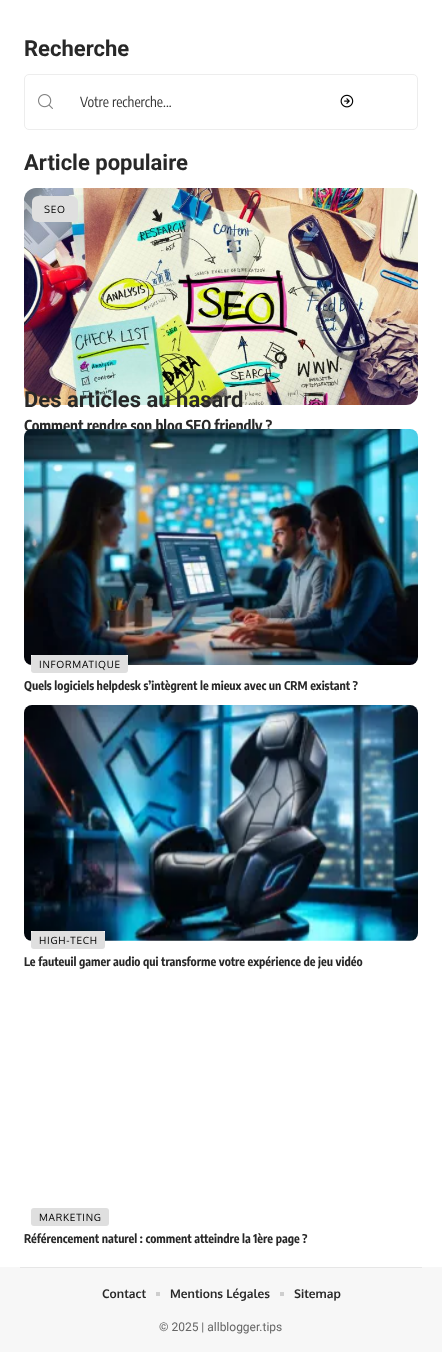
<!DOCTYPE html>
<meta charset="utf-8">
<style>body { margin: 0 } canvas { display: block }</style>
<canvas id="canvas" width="442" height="1352"></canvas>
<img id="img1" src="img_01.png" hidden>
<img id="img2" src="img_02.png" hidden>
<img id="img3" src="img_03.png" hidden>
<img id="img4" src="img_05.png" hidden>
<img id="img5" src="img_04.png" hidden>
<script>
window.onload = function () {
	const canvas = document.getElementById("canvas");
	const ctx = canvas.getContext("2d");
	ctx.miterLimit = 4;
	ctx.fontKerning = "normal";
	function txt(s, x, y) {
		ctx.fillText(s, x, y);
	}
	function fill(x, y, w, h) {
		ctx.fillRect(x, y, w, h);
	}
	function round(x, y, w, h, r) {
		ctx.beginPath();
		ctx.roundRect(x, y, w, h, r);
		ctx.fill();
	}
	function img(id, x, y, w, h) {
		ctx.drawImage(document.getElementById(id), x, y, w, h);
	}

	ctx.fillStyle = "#FFFFFF";
	fill(0, 0, 442, 1352);
	ctx.beginPath();
	ctx.roundRect(24.5, 74.5, 393, 55, 4.5);
	ctx.strokeStyle = "#EDEDED";
	ctx.stroke();
	img("img1", 38, 94, 15, 15);
	img("img2", 340, 94, 14, 14);
	img("img3", 24, 188, 394, 217);
	ctx.fillStyle = "#DFDFDF";
	round(32, 196, 46, 26, 6);
	img("img4", 24, 705, 394, 236);
	ctx.fillStyle = "#FFFFFF";
	fill(31, 931, 74, 10);
	ctx.fillStyle = "#DFDFDF";
	round(31, 931, 74, 18, 3);
	round(31, 1208, 78, 18, 3);
	ctx.fillStyle = "#F7F7F7";
	fill(0, 1267, 442, 85);
	ctx.fillStyle = "#E6E6E6";
	fill(20, 1267, 402, 1);
	ctx.fillStyle = "#CECECE";
	fill(156, 1292, 4, 4);
	fill(280, 1292, 4, 4);
	ctx.font = "bold 22px Roboto";
	ctx.fillStyle = "#282828";
	txt("Recherche", 24, 56);
	ctx.font = "14px Encode Sans Condensed";
	ctx.fillStyle = "#333333";
	txt("Votre recherche...", 80, 107);
	ctx.font = "bold 22px Roboto";
	ctx.fillStyle = "#282828";
	txt("Article populaire", 24, 170);
	ctx.letterSpacing = "0.75px";
	ctx.font = "10px Oxygen";
	ctx.fillStyle = "#000000";
	txt("SEO", 44, 213);
	ctx.letterSpacing = "0px";
	ctx.font = "bold 15px Encode Sans Condensed";
	ctx.fillStyle = "#282828";
	txt("Comment rendre son blog SEO friendly ?", 24, 431);
	ctx.font = "bold 22px Roboto";
	txt("Des articles au hasard", 24, 407);
	img("img5", 24, 429, 394, 236);
	ctx.fillStyle = "#FFFFFF";
	fill(31, 655, 97, 10);
	ctx.fillStyle = "#DFDFDF";
	round(31, 655, 97, 18, 3);
	ctx.letterSpacing = "0.75px";
	ctx.font = "10px Oxygen";
	ctx.fillStyle = "#000000";
	txt("INFORMATIQUE", 39, 668);
	ctx.letterSpacing = "0px";
	ctx.font = "bold 12px Encode Sans Condensed";
	ctx.fillStyle = "#282828";
	txt("Quels logiciels helpdesk s’intègrent le mieux avec un CRM existant ?", 24, 690);
	ctx.letterSpacing = "0.75px";
	ctx.font = "10px Oxygen";
	ctx.fillStyle = "#000000";
	txt("HIGH-TECH", 39, 944);
	ctx.letterSpacing = "0px";
	ctx.font = "bold 12px Encode Sans Condensed";
	ctx.fillStyle = "#282828";
	txt("Le fauteuil gamer audio qui transforme votre expérience de jeu vidéo", 24, 966);
	ctx.letterSpacing = "0.75px";
	ctx.font = "10px Oxygen";
	ctx.fillStyle = "#000000";
	txt("MARKETING", 39, 1221);
	ctx.letterSpacing = "0px";
	ctx.font = "bold 12px Encode Sans Condensed";
	ctx.fillStyle = "#282828";
	txt("Référencement naturel : comment atteindre la 1ère page ?", 24, 1243);
	ctx.font = "bold 12px Oxygen";
	txt("Contact", 102, 1298);
	txt("Mentions Légales", 170, 1298);
	txt("Sitemap", 294, 1298);
	ctx.font = "12px Roboto";
	ctx.fillStyle = "#666666";
	txt("© 2025 | allblogger.tips", 159, 1331);
};
</script>
